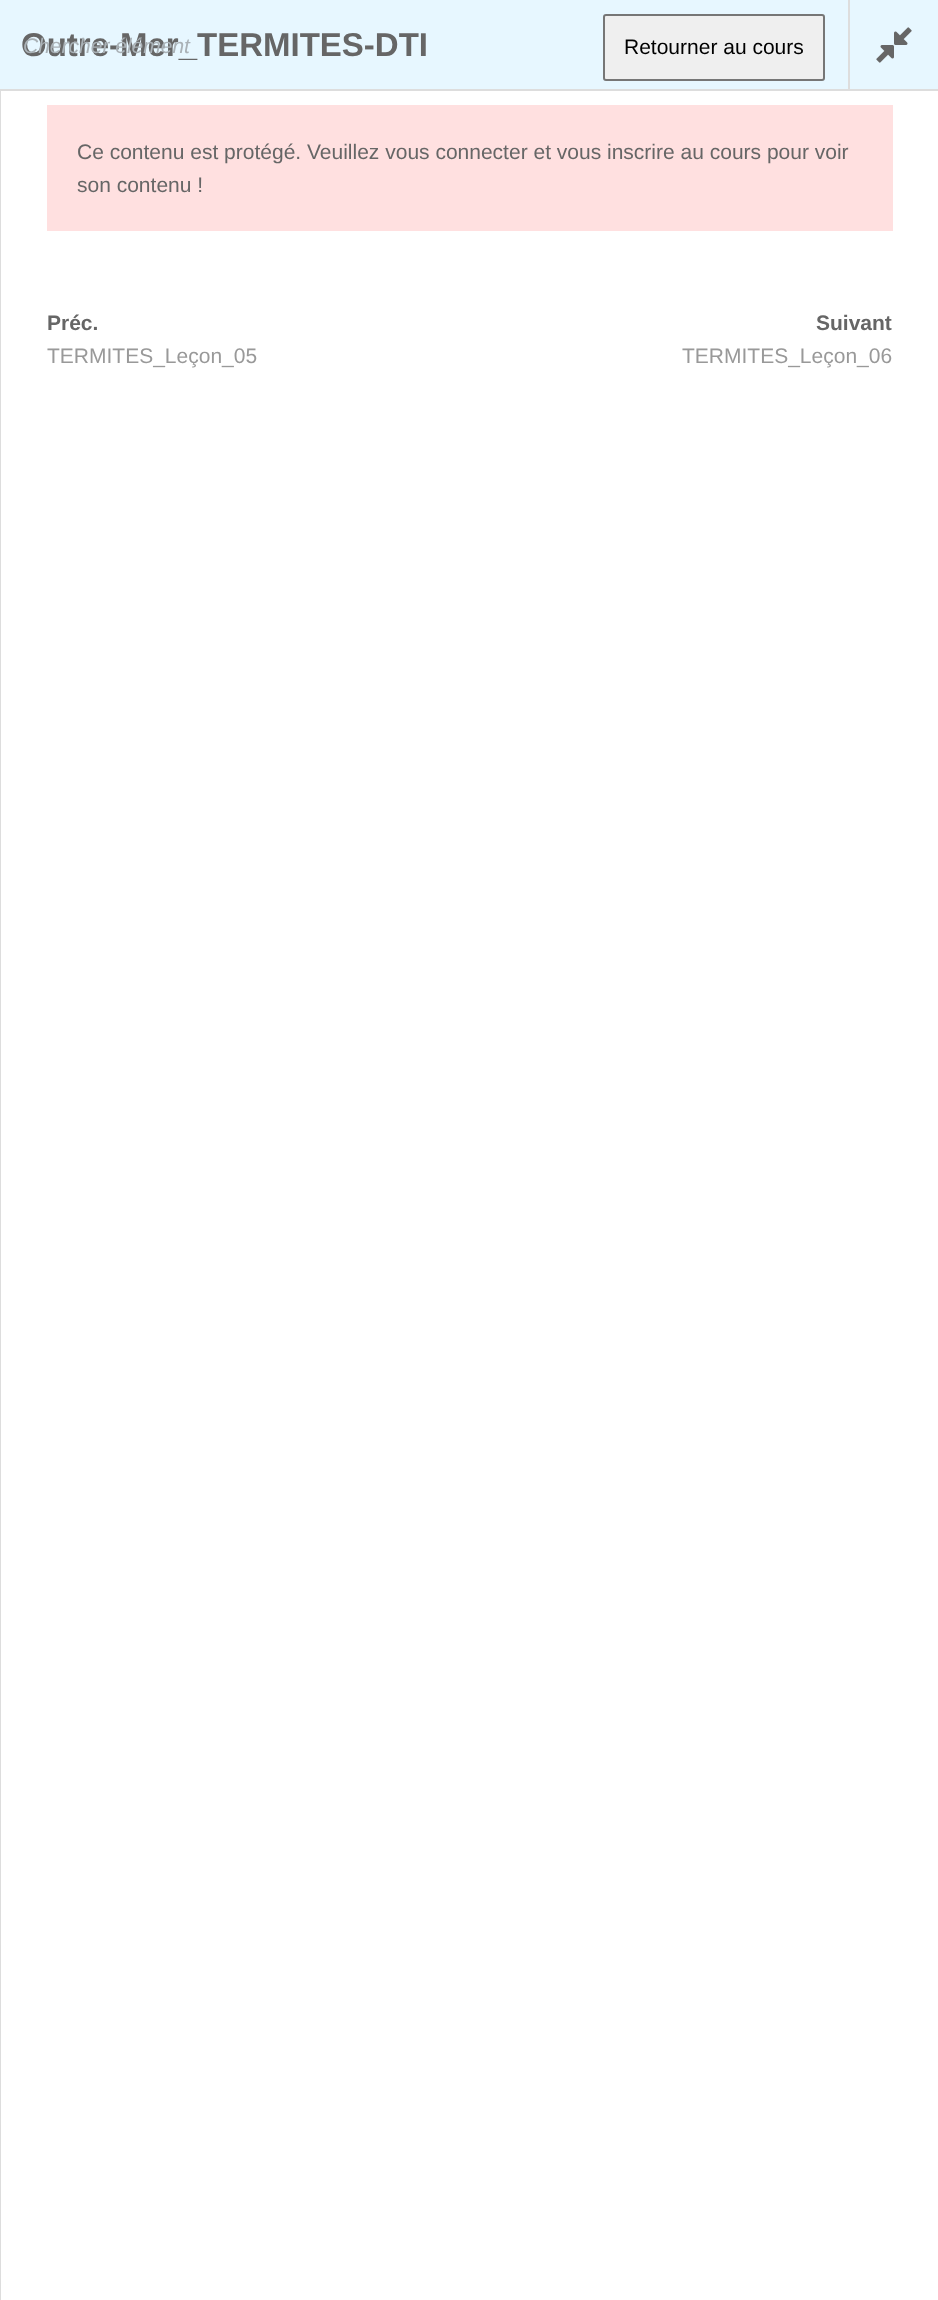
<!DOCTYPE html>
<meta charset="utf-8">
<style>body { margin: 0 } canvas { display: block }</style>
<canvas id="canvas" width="938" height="2300"></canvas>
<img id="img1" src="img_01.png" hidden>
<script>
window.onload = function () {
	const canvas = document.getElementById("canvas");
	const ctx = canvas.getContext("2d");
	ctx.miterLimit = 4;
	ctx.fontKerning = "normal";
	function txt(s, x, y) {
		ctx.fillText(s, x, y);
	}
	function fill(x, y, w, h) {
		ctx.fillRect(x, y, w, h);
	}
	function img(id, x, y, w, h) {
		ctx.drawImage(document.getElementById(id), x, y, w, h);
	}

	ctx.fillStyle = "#FFFFFF";
	fill(0, 0, 938, 2300);
	ctx.fillStyle = "#DDDDDD";
	fill(0, 89, 938, 2);
	fill(0, 90, 1, 2210);
	ctx.fillStyle = "#E7F7FF";
	fill(0, 0, 938, 89);
	ctx.fillStyle = "#DDDDDD";
	fill(848, 0, 2, 90);
	img("img1", 876, 27, 36, 36);
	ctx.fillStyle = "#EFEFEF";
	ctx.beginPath();
	ctx.roundRect(604, 15, 220, 65, 2);
	ctx.fill();
	ctx.strokeStyle = "#767676";
	ctx.lineWidth = 2;
	ctx.stroke();
	ctx.fillStyle = "#FFE0E0";
	fill(47, 105, 846, 126);
	ctx.font = "bold 33px Liberation Sans";
	ctx.fillStyle = "#666666";
	txt("Outre-Mer_TERMITES-DTI", 21, 56);
	ctx.font = "italic 21px Liberation Sans";
	ctx.fillStyle = "#AAB2B7";
	txt("Chercher élément", 23, 53);
	ctx.font = "21px Liberation Sans";
	ctx.fillStyle = "#000000";
	txt("Retourner au cours", 624, 54);
	ctx.fillStyle = "#666666";
	txt("Ce contenu est protégé. Veuillez vous connecter et vous inscrire au cours pour voir", 77, 159);
	txt("son contenu !", 77, 192);
	ctx.font = "bold 21px Liberation Sans";
	txt("Préc.", 47, 330);
	ctx.font = "21px Liberation Sans";
	ctx.fillStyle = "#999999";
	txt("TERMITES_Leçon_05", 47, 363);
	ctx.font = "bold 21px Liberation Sans";
	ctx.fillStyle = "#666666";
	txt("Suivant", 816, 330);
	ctx.font = "21px Liberation Sans";
	ctx.fillStyle = "#999999";
	txt("TERMITES_Leçon_06", 682, 363);
};
</script>
